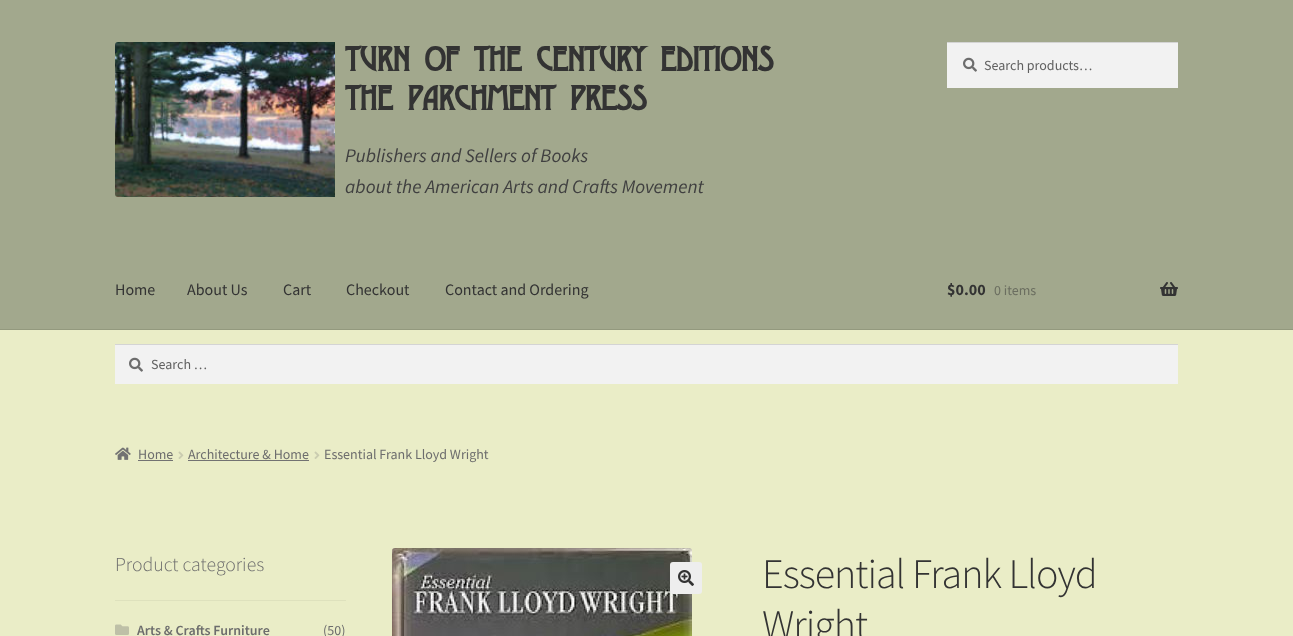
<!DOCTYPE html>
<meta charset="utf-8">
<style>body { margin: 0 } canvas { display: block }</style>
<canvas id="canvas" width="1293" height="636"></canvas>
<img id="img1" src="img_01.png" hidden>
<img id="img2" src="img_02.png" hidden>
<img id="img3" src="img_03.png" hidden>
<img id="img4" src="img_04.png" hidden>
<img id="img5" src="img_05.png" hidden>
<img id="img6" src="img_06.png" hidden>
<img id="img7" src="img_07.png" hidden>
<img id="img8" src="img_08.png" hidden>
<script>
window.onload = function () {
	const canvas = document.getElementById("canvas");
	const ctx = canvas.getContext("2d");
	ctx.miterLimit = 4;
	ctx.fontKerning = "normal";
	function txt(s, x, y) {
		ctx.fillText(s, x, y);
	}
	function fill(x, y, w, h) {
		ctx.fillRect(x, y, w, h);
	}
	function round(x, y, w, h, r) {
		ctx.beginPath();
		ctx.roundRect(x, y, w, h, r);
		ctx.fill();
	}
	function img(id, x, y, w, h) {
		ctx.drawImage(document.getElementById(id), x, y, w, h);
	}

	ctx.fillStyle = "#EAEDC7";
	fill(0, 0, 1293, 636);
	ctx.fillStyle = "#A2A88D";
	fill(0, 0, 1293, 329);
	ctx.fillStyle = "#93997E";
	fill(0, 329, 1293, 1);
	img("img1", 115, 42, 220, 155);
	ctx.fillStyle = "#F2F2F2";
	fill(947, 43, 231, 45);
	img("img2", 963, 57, 14, 15);
	ctx.fillStyle = "#D4D4D4";
	fill(947, 42, 231, 1);
	img("img3", 1160, 282, 18, 14);
	ctx.fillStyle = "#F2F2F2";
	fill(115, 345, 1063, 39);
	img("img2", 129, 357, 14, 15);
	ctx.fillStyle = "#D4D4D4";
	fill(115, 344, 1063, 1);
	img("img4", 115, 447, 16, 13);
	ctx.fillStyle = "#727272";
	fill(138, 460, 35, 1);
	img("img5", 178, 451, 6, 8);
	fill(188, 460, 121, 1);
	img("img5", 314, 451, 6, 8);
	ctx.fillStyle = "#DEE1BD";
	fill(115, 600, 231, 1);
	img("img6", 115, 624, 14, 11);
	img("img7", 392, 548, 300, 88);
	ctx.fillStyle = "#EEEEEE";
	round(670, 562, 32, 32, 3);
	img("img8", 678, 570, 16, 16);
	ctx.letterSpacing = "-1px";
	ctx.font = "bold 32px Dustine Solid";
	ctx.fillStyle = "#333333";
	txt("Turn of the Century Editions", 345, 71);
	txt("The Parchment Press", 345, 110);
	ctx.letterSpacing = "0px";
	ctx.font = "italic 19.25px Source Sans Pro";
	ctx.fillStyle = "#404040";
	txt("Publishers and Sellers of Books", 345, 162);
	txt("about the American Arts and Crafts Movement", 345, 193);
	ctx.font = "14px Source Sans Pro";
	ctx.fillStyle = "#616161";
	txt("Search products…", 984, 70);
	ctx.font = "16px Source Sans Pro";
	ctx.fillStyle = "#333333";
	txt("Home", 115, 295);
	txt("About Us", 187, 295);
	txt("Cart", 283, 295);
	txt("Checkout", 346, 295);
	txt("Contact and Ordering", 445, 295);
	ctx.font = "bold 16px Source Sans Pro";
	txt("$0.00", 947, 295);
	ctx.font = "14px Source Sans Pro";
	ctx.fillStyle = "#6B6E60";
	txt("0 items", 994, 295);
	ctx.fillStyle = "#616161";
	txt("Search …", 151, 369);
	ctx.fillStyle = "#6D6D6D";
	txt("Home", 138, 459);
	txt("Architecture & Home", 188, 459);
	txt("Essential Frank Lloyd Wright", 324, 459);
	ctx.font = "300 19.75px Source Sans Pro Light";
	txt("Product categories", 115, 571);
	ctx.font = "600 14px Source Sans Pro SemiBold";
	txt("Arts & Crafts Furniture", 137, 635);
	ctx.font = "14px Source Sans Pro";
	txt("(50)", 323, 635);
	ctx.letterSpacing = "-1px";
	ctx.font = "300 42px Source Sans Pro Light";
	ctx.fillStyle = "#333333";
	txt("Essential Frank Lloyd", 762, 588);
	txt("Wright", 762, 639);
};
</script>
